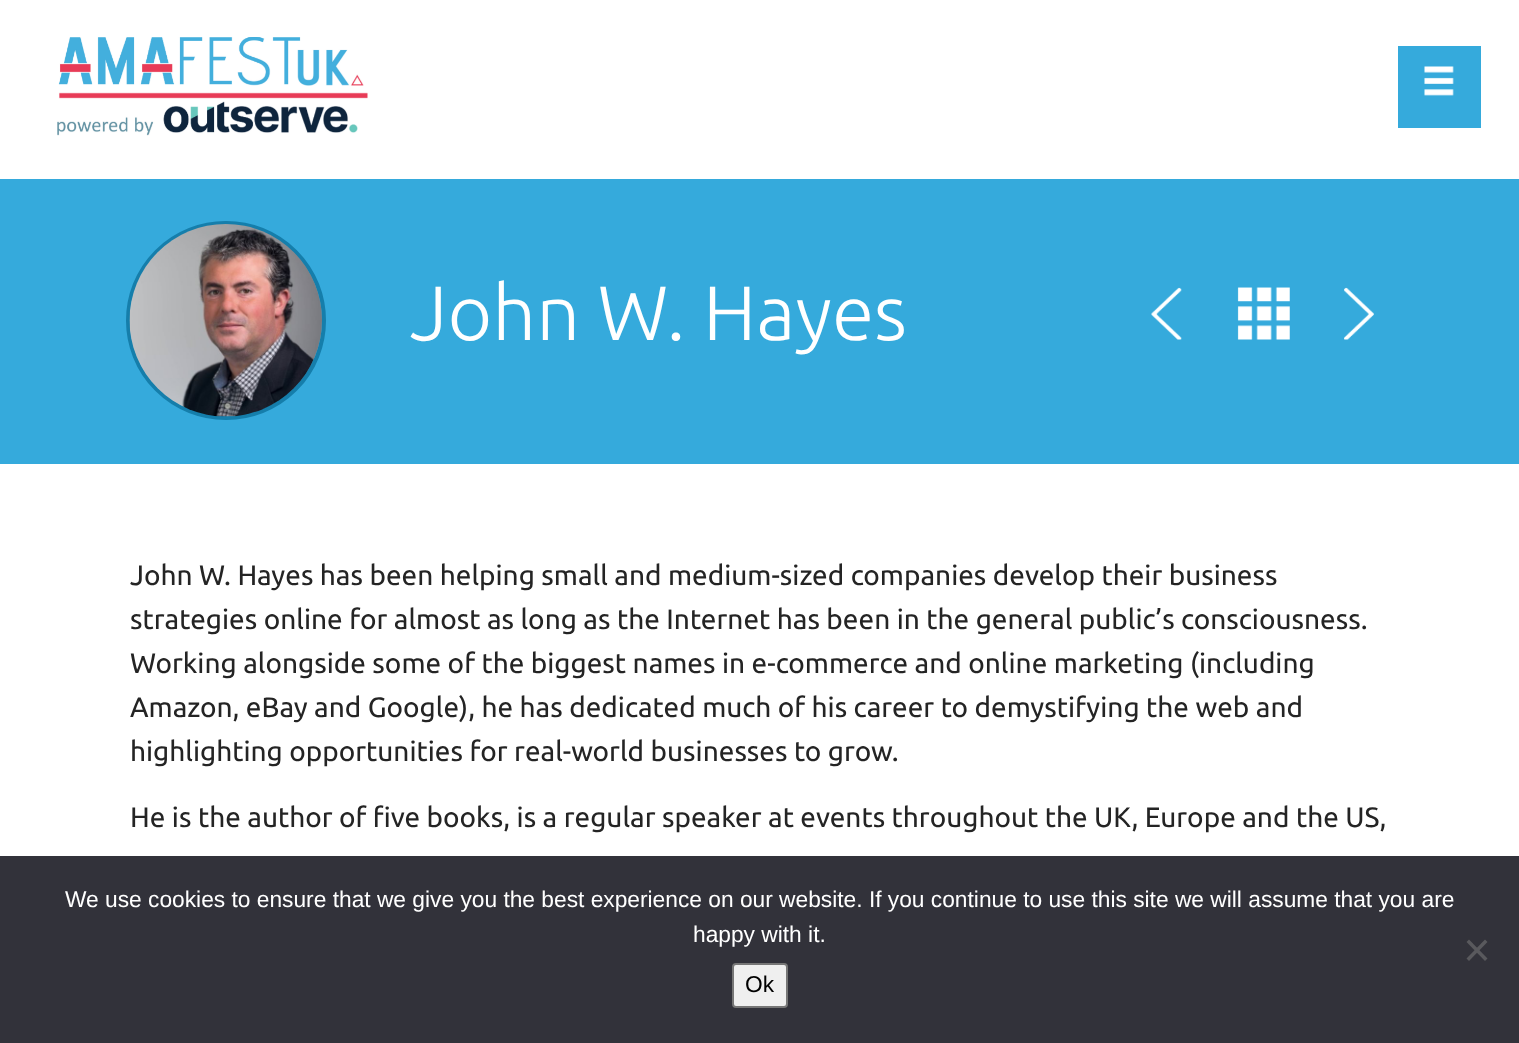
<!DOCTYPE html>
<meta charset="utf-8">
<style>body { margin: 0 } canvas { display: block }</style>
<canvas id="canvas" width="1519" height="1043"></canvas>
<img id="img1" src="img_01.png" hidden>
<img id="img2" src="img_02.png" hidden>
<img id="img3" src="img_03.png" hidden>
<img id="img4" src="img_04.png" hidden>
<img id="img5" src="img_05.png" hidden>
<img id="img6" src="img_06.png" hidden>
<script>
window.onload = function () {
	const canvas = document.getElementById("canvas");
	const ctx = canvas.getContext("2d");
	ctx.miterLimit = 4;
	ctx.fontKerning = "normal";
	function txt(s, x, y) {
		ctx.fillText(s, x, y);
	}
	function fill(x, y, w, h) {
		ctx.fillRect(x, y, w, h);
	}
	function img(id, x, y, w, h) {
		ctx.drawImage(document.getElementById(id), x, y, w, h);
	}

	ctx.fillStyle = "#FFFFFF";
	fill(0, 0, 1519, 1043);
	img("img1", 57, 37, 311, 99);
	ctx.fillStyle = "#35AADC";
	fill(1398, 46, 83, 82);
	img("img2", 1424, 66, 30, 30);
	fill(0, 179, 1519, 285);
	ctx.beginPath();
	ctx.roundRect(128, 223, 196, 195, 97.5);
	ctx.strokeStyle = "#157EAB";
	ctx.lineWidth = 4;
	ctx.stroke();
	img("img3", 129, 224, 193, 193);
	img("img4", 1151, 287, 31, 53);
	img("img5", 1237, 287, 53, 53);
	img("img6", 1344, 287, 30, 53);
	ctx.fillStyle = "#32323A";
	fill(0, 856, 1519, 187);
	ctx.fillStyle = "#59595D";
	ctx.beginPath();
	ctx.moveTo(1485, 939.5);
	ctx.lineTo(1487.5, 942);
	ctx.lineTo(1469, 961);
	ctx.lineTo(1466.5, 958.5);
	ctx.closePath();
	ctx.fill();
	ctx.beginPath();
	ctx.moveTo(1466.5, 942);
	ctx.lineTo(1469, 939.5);
	ctx.lineTo(1487.5, 958.5);
	ctx.lineTo(1485, 961);
	ctx.closePath();
	ctx.fill();
	ctx.fillStyle = "#EFEFEF";
	ctx.beginPath();
	ctx.roundRect(733, 964, 54, 43, 3);
	ctx.fill();
	ctx.strokeStyle = "#767676";
	ctx.lineWidth = 2;
	ctx.stroke();
	ctx.font = "300 77px Ubuntu";
	ctx.fillStyle = "#FFFFFF";
	txt("John W. Hayes", 410, 340);
	ctx.font = "28px Ubuntu";
	ctx.fillStyle = "#242424";
	txt("John W. Hayes has been helping small and medium-sized companies develop their business", 130, 585);
	txt("strategies online for almost as long as the Internet has been in the general public’s consciousness.", 130, 629);
	txt("Working alongside some of the biggest names in e-commerce and online marketing (including", 130, 673);
	txt("Amazon, eBay and Google), he has dedicated much of his career to demystifying the web and", 130, 717);
	txt("highlighting opportunities for real-world businesses to grow.", 130, 761);
	txt("He is the author of five books, is a regular speaker at events throughout the UK, Europe and the US,", 130, 827);
	ctx.font = "22.75px Liberation Sans";
	ctx.fillStyle = "#FFFFFF";
	txt("We use cookies to ensure that we give you the best experience on our website. If you continue to use this site we will assume that you are", 65, 907);
	txt("happy with it.", 693, 942);
	ctx.fillStyle = "#000000";
	txt("Ok", 745, 992);
};
</script>
